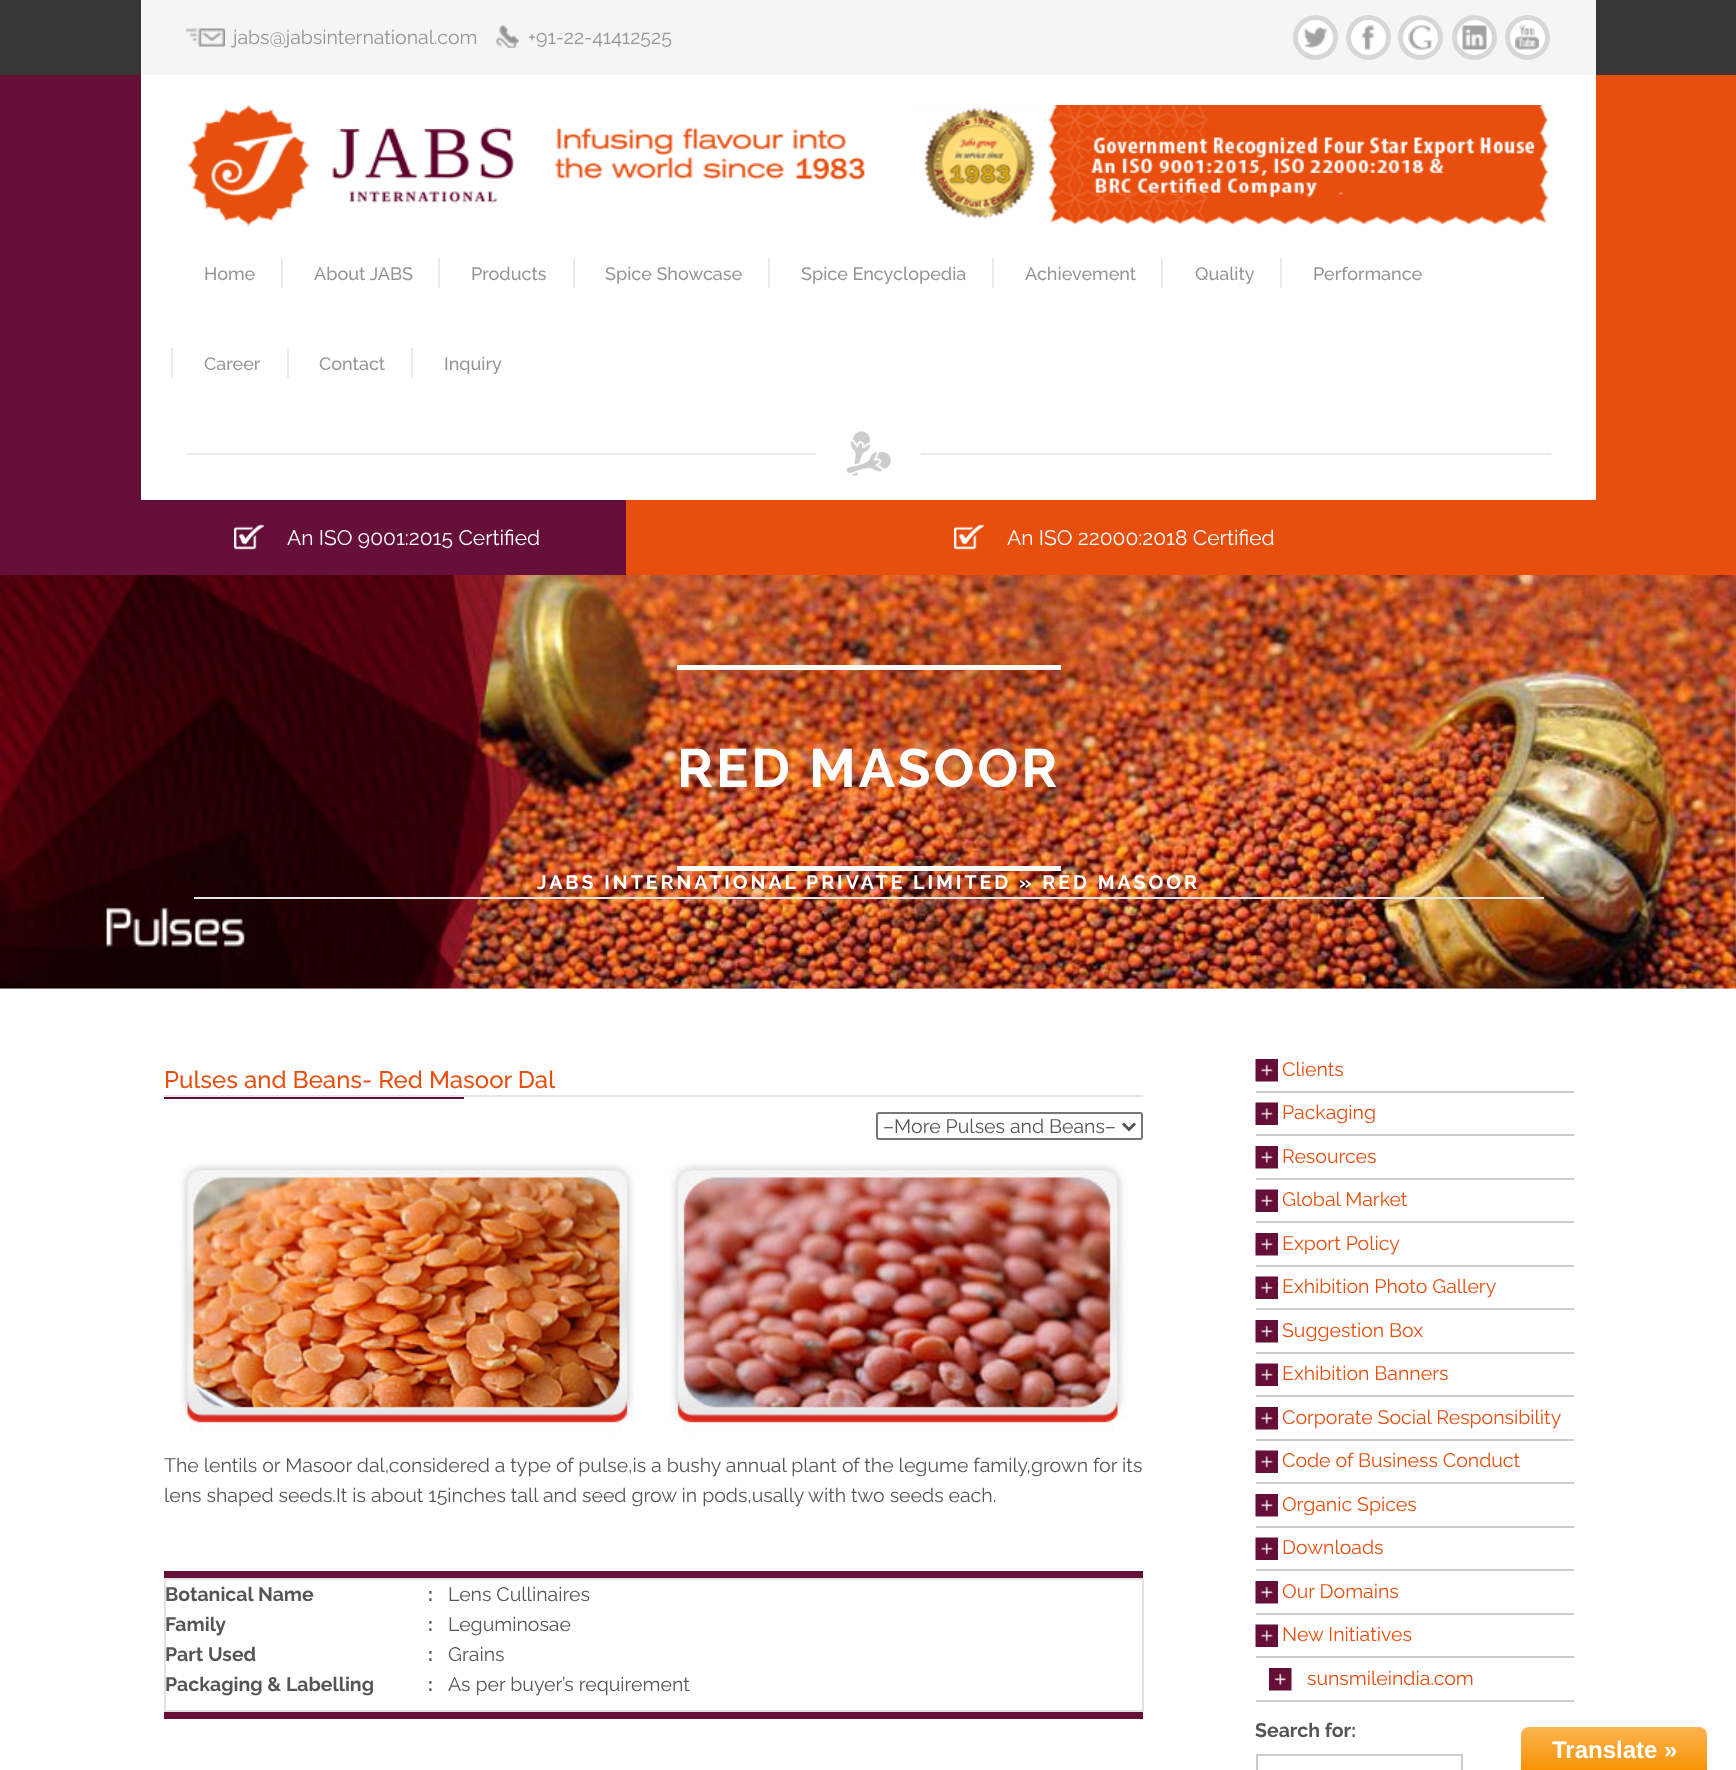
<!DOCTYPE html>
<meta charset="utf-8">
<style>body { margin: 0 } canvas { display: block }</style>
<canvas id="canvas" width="1736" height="1770"></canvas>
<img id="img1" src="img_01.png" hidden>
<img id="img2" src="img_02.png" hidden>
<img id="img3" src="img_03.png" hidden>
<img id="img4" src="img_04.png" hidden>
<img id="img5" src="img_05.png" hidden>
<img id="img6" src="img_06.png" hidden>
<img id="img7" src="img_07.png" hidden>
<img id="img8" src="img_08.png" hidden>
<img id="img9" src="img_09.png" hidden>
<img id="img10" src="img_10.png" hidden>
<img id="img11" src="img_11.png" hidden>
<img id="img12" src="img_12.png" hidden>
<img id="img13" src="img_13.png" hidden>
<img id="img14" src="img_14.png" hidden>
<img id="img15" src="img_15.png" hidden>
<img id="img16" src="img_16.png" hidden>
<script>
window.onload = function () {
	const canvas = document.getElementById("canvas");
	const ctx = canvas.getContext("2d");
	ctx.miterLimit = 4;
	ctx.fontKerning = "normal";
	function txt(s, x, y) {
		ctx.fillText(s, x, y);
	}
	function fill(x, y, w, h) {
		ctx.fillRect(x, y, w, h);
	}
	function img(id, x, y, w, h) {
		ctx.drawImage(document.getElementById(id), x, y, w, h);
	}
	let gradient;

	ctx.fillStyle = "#FFFFFF";
	fill(0, 0, 1736, 1770);
	ctx.fillStyle = "#363636";
	fill(0, 0, 1736, 75);
	ctx.fillStyle = "#F5F5F5";
	fill(141, 0, 1455, 75);
	img("img1", 186, 28, 39, 19);
	img("img2", 496, 25, 23, 23);
	ctx.fillStyle = "#FFFFFF";
	ctx.beginPath();
	ctx.arc(1315.5, 37.5, 22.5, 0, Math.PI * 2);
	ctx.fill();
	img("img3", 1303, 27, 25, 22);
	ctx.beginPath();
	ctx.arc(1315.5, 37.5, 20, 0, Math.PI * 2);
	ctx.strokeStyle = "#D7D7D7";
	ctx.lineWidth = 5;
	ctx.stroke();
	ctx.beginPath();
	ctx.arc(1368.5, 37.5, 22.5, 0, Math.PI * 2);
	ctx.fill();
	img("img4", 1361, 25, 14, 25);
	ctx.beginPath();
	ctx.arc(1368.5, 37.5, 20, 0, Math.PI * 2);
	ctx.stroke();
	ctx.beginPath();
	ctx.arc(1420.5, 37.5, 22.5, 0, Math.PI * 2);
	ctx.fill();
	img("img5", 1408, 25, 25, 25);
	ctx.beginPath();
	ctx.arc(1420.5, 37.5, 20, 0, Math.PI * 2);
	ctx.stroke();
	ctx.beginPath();
	ctx.arc(1474.5, 37.5, 22.5, 0, Math.PI * 2);
	ctx.fill();
	img("img6", 1462, 25, 25, 25);
	ctx.beginPath();
	ctx.arc(1474.5, 37.5, 20, 0, Math.PI * 2);
	ctx.stroke();
	ctx.beginPath();
	ctx.arc(1527.5, 37.5, 22.5, 0, Math.PI * 2);
	ctx.fill();
	img("img7", 1515, 25, 24, 25);
	ctx.beginPath();
	ctx.arc(1527.5, 37.5, 20, 0, Math.PI * 2);
	ctx.stroke();
	ctx.fillStyle = "#660F39";
	fill(0, 75, 141, 425);
	ctx.fillStyle = "#E84E0E";
	fill(1596, 75, 140, 425);
	img("img8", 187, 105, 1362, 122);
	ctx.fillStyle = "#EBEBEB";
	fill(281, 258, 2, 30);
	fill(438, 258, 2, 30);
	fill(573, 258, 2, 30);
	fill(768, 258, 2, 30);
	fill(992, 258, 2, 30);
	fill(1161, 258, 2, 30);
	fill(1280, 258, 2, 30);
	fill(171, 348, 2, 30);
	fill(287, 348, 2, 30);
	fill(411, 348, 2, 30);
	fill(186, 453, 1365, 2);
	ctx.fillStyle = "#FFFFFF";
	fill(816, 453, 105, 2);
	img("img9", 846, 431, 45, 45);
	ctx.fillStyle = "#660F39";
	fill(0, 500, 626, 75);
	ctx.fillStyle = "#E84E0E";
	fill(626, 500, 1110, 75);
	img("img10", 234, 524, 30, 26);
	img("img11", 954, 524, 30, 26);
	ctx.fillStyle = "#E1E1E1";
	fill(0, 988, 1736, 1);
	img("img12", 0, 575, 1736, 414);
	ctx.fillStyle = "#FFFFFF";
	fill(677, 665, 384, 5);
	fill(677, 866, 384, 5);
	ctx.fillStyle = "#E5E5E5";
	fill(194, 897, 1350, 2);
	fill(164, 1095, 979, 2);
	ctx.fillStyle = "#660F39";
	fill(164, 1097, 300, 2);
	ctx.beginPath();
	ctx.roundRect(877, 1113, 265, 26, 2);
	ctx.strokeStyle = "#767676";
	ctx.lineWidth = 2;
	ctx.stroke();
	ctx.beginPath();
	ctx.moveTo(1123, 1123.5);
	ctx.lineTo(1129, 1129.5);
	ctx.lineTo(1135, 1123.5);
	ctx.strokeStyle = "#555555";
	ctx.lineWidth = 3;
	ctx.stroke();
	img("img13", 178, 1163, 949, 270);
	fill(164, 1571, 979, 7);
	ctx.fillStyle = "#E1E1E1";
	fill(164, 1578, 979, 2);
	fill(1142, 1578, 2, 134);
	fill(164, 1710, 979, 2);
	fill(164, 1578, 2, 134);
	ctx.fillStyle = "#660F39";
	fill(164, 1712, 979, 7);
	ctx.fillStyle = "#CCCCCC";
	fill(1256, 1091, 318, 2);
	img("img14", 1255, 1059, 23, 23);
	fill(1256, 1134, 318, 2);
	img("img15", 1255, 1102, 23, 23);
	fill(1256, 1178, 318, 2);
	img("img14", 1255, 1146, 23, 23);
	fill(1256, 1221, 318, 2);
	img("img15", 1255, 1189, 23, 23);
	fill(1256, 1265, 318, 2);
	img("img14", 1255, 1233, 23, 23);
	fill(1256, 1308, 318, 2);
	img("img15", 1255, 1276, 23, 23);
	fill(1256, 1352, 318, 2);
	img("img14", 1255, 1320, 23, 23);
	fill(1256, 1395, 318, 2);
	img("img15", 1255, 1363, 23, 23);
	fill(1256, 1439, 318, 2);
	img("img14", 1255, 1407, 23, 23);
	fill(1256, 1482, 318, 2);
	img("img15", 1255, 1450, 23, 23);
	fill(1256, 1526, 318, 2);
	img("img14", 1255, 1494, 23, 23);
	fill(1256, 1569, 318, 2);
	img("img15", 1255, 1537, 23, 23);
	fill(1256, 1613, 318, 2);
	img("img14", 1255, 1581, 23, 23);
	fill(1256, 1656, 318, 2);
	img("img15", 1255, 1624, 23, 23);
	fill(1256, 1700, 318, 2);
	img("img16", 1269, 1668, 23, 23);
	ctx.strokeStyle = "#CCCCCC";
	ctx.lineWidth = 2;
	ctx.strokeRect(1257, 1755, 205, 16);
	gradient = ctx.createLinearGradient(1614, 1727, 1614, 1770);
	gradient.addColorStop(0, "#FBB450");
	gradient.addColorStop(1, "#F89406");
	ctx.fillStyle = gradient;
	ctx.beginPath();
	ctx.roundRect(1521, 1727, 186, 43, [8, 8, 0, 0]);
	ctx.fill();
	ctx.font = "19.5px Raleway";
	ctx.fillStyle = "#959595";
	txt("jabs@jabsinternational.com", 233, 44);
	txt("+91-22-41412525", 528, 44);
	ctx.font = "500 18px Raleway";
	txt("Home", 204, 280);
	txt("About JABS", 314, 280);
	txt("Products", 471, 280);
	txt("Spice Showcase", 605, 280);
	txt("Spice Encyclopedia", 801, 280);
	txt("Achievement", 1025, 280);
	txt("Quality", 1195, 280);
	txt("Performance", 1313, 280);
	txt("Career", 204, 370);
	txt("Contact", 319, 370);
	txt("Inquiry", 444, 370);
	ctx.font = "21px Raleway";
	ctx.fillStyle = "#FFFFFF";
	txt("An ISO 9001:2015 Certified", 287, 545);
	txt("An ISO 22000:2018 Certified", 1007, 545);
	ctx.letterSpacing = "3px";
	ctx.font = "bold 54px Raleway";
	txt("RED MASOOR", 677, 787);
	ctx.font = "bold 19.5px Raleway";
	txt("JABS INTERNATIONAL PRIVATE LIMITED", 537, 889);
	txt("» RED MASOOR", 1019, 889);
	ctx.letterSpacing = "0px";
	ctx.font = "500 24px Raleway";
	ctx.fillStyle = "#E84E0E";
	txt("Pulses and Beans- Red Masoor Dal", 164, 1088);
	ctx.font = "19.5px Raleway";
	ctx.fillStyle = "#555555";
	txt("–More Pulses and Beans–", 883, 1133);
	txt("The lentils or Masoor dal,considered a type of pulse,is a bushy annual plant of the legume family,grown for its", 164, 1472);
	txt("lens shaped seeds.It is about 15inches tall and seed grow in pods,usally with two seeds each.", 164, 1502);
	ctx.font = "bold 19.5px Raleway";
	txt("Botanical Name", 165, 1601);
	txt("Family", 165, 1631);
	txt("Part Used", 165, 1661);
	txt("Packaging & Labelling", 165, 1691);
	txt(":", 428, 1601);
	txt(":", 428, 1631);
	txt(":", 428, 1661);
	txt(":", 428, 1691);
	ctx.font = "19.5px Raleway";
	txt("Lens Cullinaires", 448, 1601);
	txt("Leguminosae", 448, 1631);
	txt("Grains", 448, 1661);
	txt("As per buyer’s requirement", 448, 1691);
	ctx.fillStyle = "#E84E0E";
	txt("Clients", 1282, 1076);
	txt("Packaging", 1282, 1119);
	txt("Resources", 1282, 1163);
	txt("Global Market", 1282, 1206);
	txt("Export Policy", 1282, 1250);
	txt("Exhibition Photo Gallery", 1282, 1293);
	txt("Suggestion Box", 1282, 1337);
	txt("Exhibition Banners", 1282, 1380);
	txt("Corporate Social Responsibility", 1282, 1424);
	txt("Code of Business Conduct", 1282, 1467);
	txt("Organic Spices", 1282, 1511);
	txt("Downloads", 1282, 1554);
	txt("Our Domains", 1282, 1598);
	txt("New Initiatives", 1282, 1641);
	txt("sunsmileindia.com", 1307, 1685);
	ctx.font = "bold 19.5px Raleway";
	ctx.fillStyle = "#555555";
	txt("Search for:", 1255, 1737);
	ctx.font = "bold 24px Liberation Sans";
	ctx.fillStyle = "#FFFFFF";
	txt("Translate »", 1552, 1758);
};
</script>
